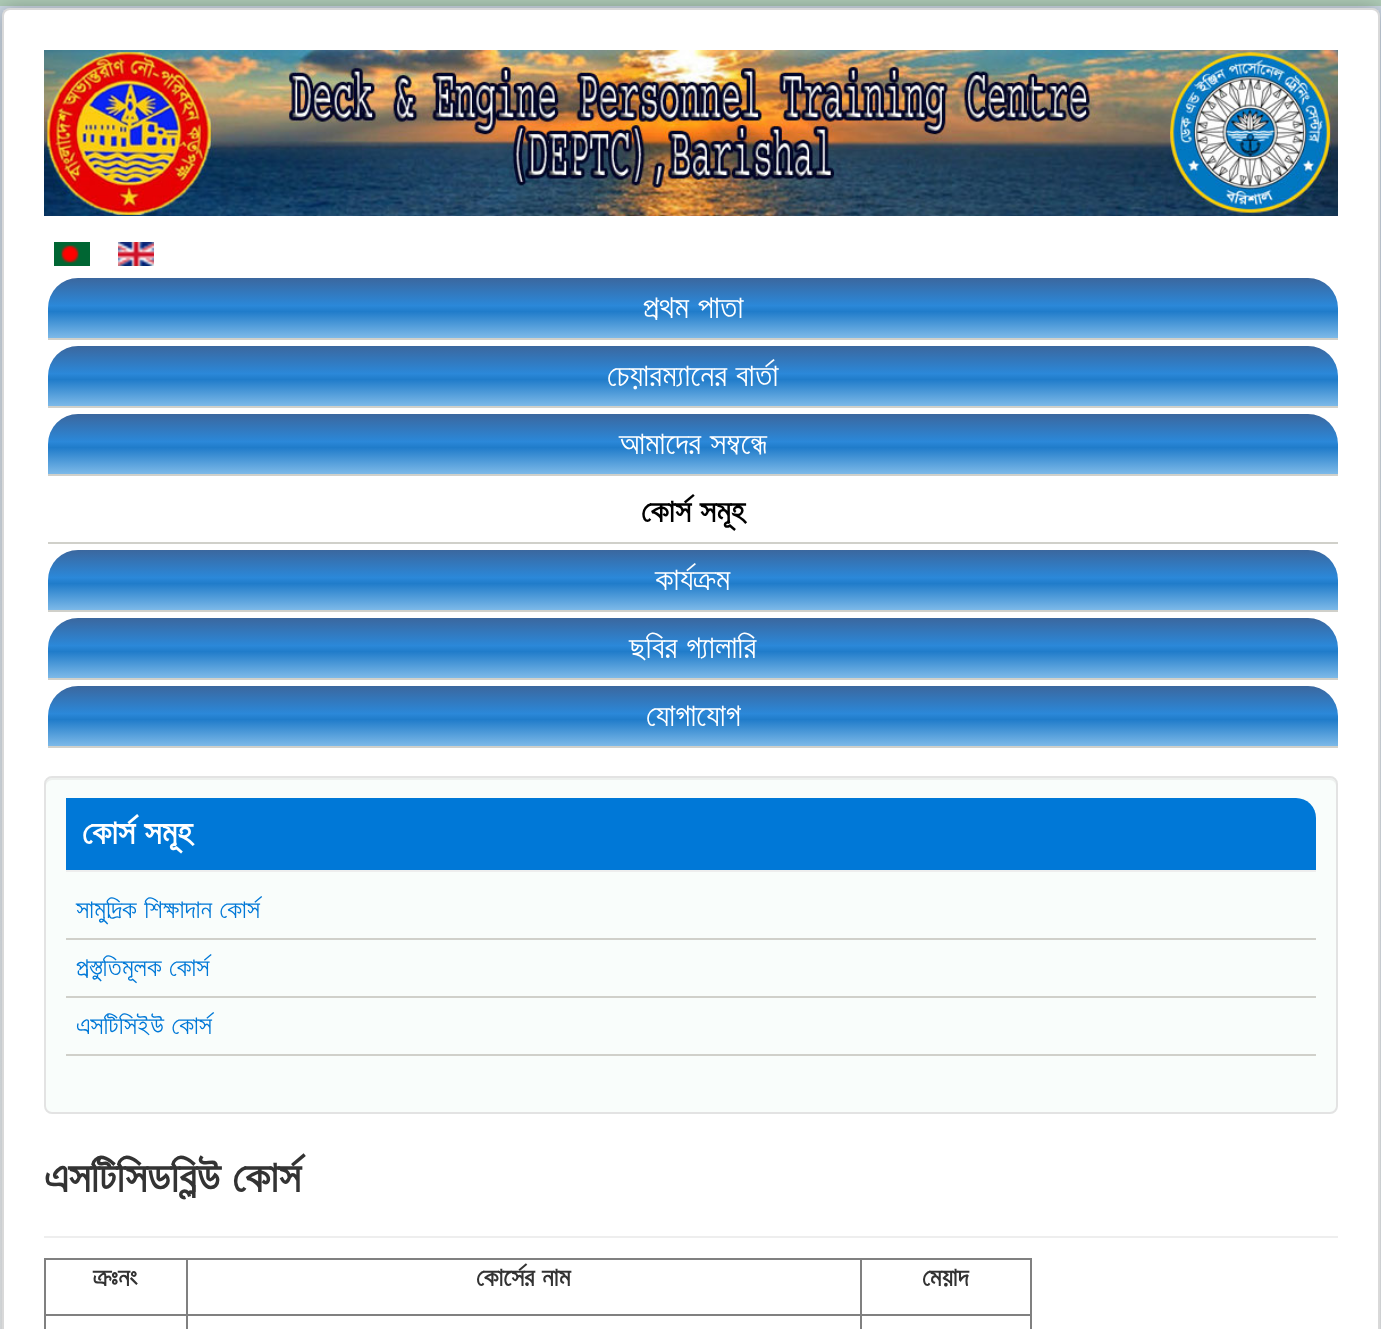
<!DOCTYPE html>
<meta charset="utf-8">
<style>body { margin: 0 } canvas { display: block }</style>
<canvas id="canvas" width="1381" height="1329"></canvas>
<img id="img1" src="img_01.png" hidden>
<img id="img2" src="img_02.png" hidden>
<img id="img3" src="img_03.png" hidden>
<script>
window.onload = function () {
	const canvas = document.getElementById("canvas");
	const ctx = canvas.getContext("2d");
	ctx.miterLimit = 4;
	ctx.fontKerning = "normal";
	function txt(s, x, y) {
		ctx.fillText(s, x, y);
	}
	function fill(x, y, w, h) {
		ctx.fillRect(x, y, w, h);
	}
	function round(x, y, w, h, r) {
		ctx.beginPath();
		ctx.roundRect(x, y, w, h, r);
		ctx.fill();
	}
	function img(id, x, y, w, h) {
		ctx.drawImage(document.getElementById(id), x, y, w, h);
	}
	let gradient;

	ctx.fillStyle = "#FFFFFF";
	fill(0, 0, 1381, 1329);
	gradient = ctx.createLinearGradient(691, 6, 691, 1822);
	gradient.addColorStop(0, "#CEDAE7");
	gradient.addColorStop(0.01, "#CEDAE7");
	gradient.addColorStop(0.84, "#F7F9F9");
	gradient.addColorStop(0.99, "#F7F9F9");
	ctx.fillStyle = gradient;
	fill(0, 6, 1381, 1323);
	ctx.fillStyle = "#AFCCB8";
	fill(0, 0, 1381, 6);
	ctx.fillStyle = "rgba(0, 0, 0, 0.3)";
	ctx.filter = "blur(10px)";
	ctx.beginPath();
	ctx.roundRect(2, 8, 1378, 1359, 8);
	ctx.fill();
	ctx.filter = "none";
	ctx.fillStyle = "#FFFFFF";
	round(2, 8, 1378, 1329, 8);
	ctx.beginPath();
	ctx.roundRect(3, 9, 1376, 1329, 7);
	ctx.strokeStyle = "rgba(0, 0, 0, 0.15)";
	ctx.lineWidth = 2;
	ctx.stroke();
	img("img1", 44, 50, 1294, 166);
	img("img2", 54, 242, 36, 24);
	img("img3", 118, 242, 36, 24);
	gradient = ctx.createLinearGradient(693, 278, 693, 338);
	gradient.addColorStop(0, "#3B679E");
	gradient.addColorStop(0.46, "#2B88D9");
	gradient.addColorStop(0.56, "#207CCA");
	gradient.addColorStop(1, "#7DB9E8");
	ctx.fillStyle = gradient;
	ctx.beginPath();
	ctx.roundRect(48, 278, 1290, 60, [30, 30, 0, 0]);
	ctx.fill();
	ctx.fillStyle = "#D0D0CA";
	fill(48, 338, 1290, 2);
	gradient = ctx.createLinearGradient(693, 346, 693, 406);
	gradient.addColorStop(0, "#3B679E");
	gradient.addColorStop(0.46, "#2B88D9");
	gradient.addColorStop(0.56, "#207CCA");
	gradient.addColorStop(1, "#7DB9E8");
	ctx.fillStyle = gradient;
	ctx.beginPath();
	ctx.roundRect(48, 346, 1290, 60, [30, 30, 0, 0]);
	ctx.fill();
	ctx.fillStyle = "#D0D0CA";
	fill(48, 406, 1290, 2);
	gradient = ctx.createLinearGradient(693, 414, 693, 474);
	gradient.addColorStop(0, "#3B679E");
	gradient.addColorStop(0.46, "#2B88D9");
	gradient.addColorStop(0.56, "#207CCA");
	gradient.addColorStop(1, "#7DB9E8");
	ctx.fillStyle = gradient;
	ctx.beginPath();
	ctx.roundRect(48, 414, 1290, 60, [30, 30, 0, 0]);
	ctx.fill();
	ctx.fillStyle = "#D0D0CA";
	fill(48, 474, 1290, 2);
	fill(48, 542, 1290, 2);
	gradient = ctx.createLinearGradient(693, 550, 693, 610);
	gradient.addColorStop(0, "#3B679E");
	gradient.addColorStop(0.46, "#2B88D9");
	gradient.addColorStop(0.56, "#207CCA");
	gradient.addColorStop(1, "#7DB9E8");
	ctx.fillStyle = gradient;
	ctx.beginPath();
	ctx.roundRect(48, 550, 1290, 60, [30, 30, 0, 0]);
	ctx.fill();
	ctx.fillStyle = "#D0D0CA";
	fill(48, 610, 1290, 2);
	gradient = ctx.createLinearGradient(693, 618, 693, 678);
	gradient.addColorStop(0, "#3B679E");
	gradient.addColorStop(0.46, "#2B88D9");
	gradient.addColorStop(0.56, "#207CCA");
	gradient.addColorStop(1, "#7DB9E8");
	ctx.fillStyle = gradient;
	ctx.beginPath();
	ctx.roundRect(48, 618, 1290, 60, [30, 30, 0, 0]);
	ctx.fill();
	ctx.fillStyle = "#D0D0CA";
	fill(48, 678, 1290, 2);
	gradient = ctx.createLinearGradient(693, 686, 693, 746);
	gradient.addColorStop(0, "#3B679E");
	gradient.addColorStop(0.46, "#2B88D9");
	gradient.addColorStop(0.56, "#207CCA");
	gradient.addColorStop(1, "#7DB9E8");
	ctx.fillStyle = gradient;
	ctx.beginPath();
	ctx.roundRect(48, 686, 1290, 60, [30, 30, 0, 0]);
	ctx.fill();
	ctx.fillStyle = "#D0D0CA";
	fill(48, 746, 1290, 2);
	ctx.fillStyle = "#F9FDFB";
	round(44, 776, 1294, 338, 8);
	ctx.fillStyle = "#EDF0EE";
	ctx.beginPath();
	ctx.moveTo(52, 780);
	ctx.lineTo(1330, 780);
	ctx.bezierCurveTo(1333, 780, 1336, 783, 1336, 786);
	ctx.lineTo(1336, 784);
	ctx.bezierCurveTo(1336, 781, 1333, 778, 1330, 778);
	ctx.lineTo(52, 778);
	ctx.bezierCurveTo(49, 778, 46, 781, 46, 784);
	ctx.lineTo(46, 786);
	ctx.bezierCurveTo(46, 783, 49, 780, 52, 780);
	ctx.closePath();
	ctx.fill();
	ctx.beginPath();
	ctx.roundRect(45, 777, 1292, 336, 7);
	ctx.strokeStyle = "#E3E3E3";
	ctx.stroke();
	ctx.fillStyle = "#0078D7";
	ctx.beginPath();
	ctx.roundRect(66, 798, 1250, 74, [0, 20, 0, 0]);
	ctx.fill();
	ctx.fillStyle = "#EEEEEE";
	fill(66, 870, 1250, 2);
	ctx.fillStyle = "#D0D0CA";
	fill(66, 938, 1250, 2);
	fill(66, 996, 1250, 2);
	fill(66, 1054, 1250, 2);
	ctx.fillStyle = "#EEEEEE";
	fill(44, 1236, 1294, 2);
	ctx.fillStyle = "#808080";
	fill(44, 1258, 988, 2);
	fill(1030, 1258, 2, 71);
	fill(44, 1258, 2, 71);
	fill(860, 1314, 172, 2);
	fill(860, 1314, 2, 15);
	fill(186, 1314, 676, 2);
	fill(186, 1314, 2, 15);
	fill(44, 1314, 144, 2);
	fill(186, 1258, 2, 58);
	fill(860, 1258, 2, 58);
	ctx.wordSpacing = "1px";
	ctx.font = "32px FreeSans";
	ctx.fillStyle = "#FFFFFF";
	txt("প্রথম পাতা", 643, 318);
	txt("চেয়ারম্যানের বার্তা", 607, 386);
	txt("আমাদের সম্বন্ধে", 619, 454);
	ctx.font = "bold 32px FreeSans";
	ctx.fillStyle = "#000000";
	txt("কোর্স সমূহ", 641, 522);
	ctx.wordSpacing = "0px";
	ctx.font = "32px FreeSans";
	ctx.fillStyle = "#FFFFFF";
	txt("কার্যক্রম", 655, 590);
	ctx.wordSpacing = "1px";
	txt("ছবির গ্যালারি", 629, 658);
	ctx.wordSpacing = "0px";
	txt("যোগাযোগ", 646, 726);
	ctx.wordSpacing = "1px";
	ctx.font = "bold 34px FreeSans";
	txt("কোর্স সমূহ", 82, 844);
	ctx.font = "26px FreeSans";
	ctx.fillStyle = "#0078D7";
	txt("সামুদ্রিক শিক্ষাদান কোর্স", 76, 918);
	txt("প্রস্তুতিমূলক কোর্স", 76, 976);
	txt("এসটিসিইউ কোর্স", 76, 1034);
	ctx.font = "bold 44px FreeSans";
	ctx.fillStyle = "#333333";
	txt("এসটিসিডব্লিউ কোর্স", 44, 1192);
	ctx.wordSpacing = "0px";
	ctx.font = "bold 26px FreeSans";
	txt("ক্রঃনং", 93, 1286);
	ctx.wordSpacing = "1px";
	txt("কোর্সের নাম", 476, 1286);
	ctx.wordSpacing = "0px";
	txt("মেয়াদ", 922, 1286);
};
</script>
